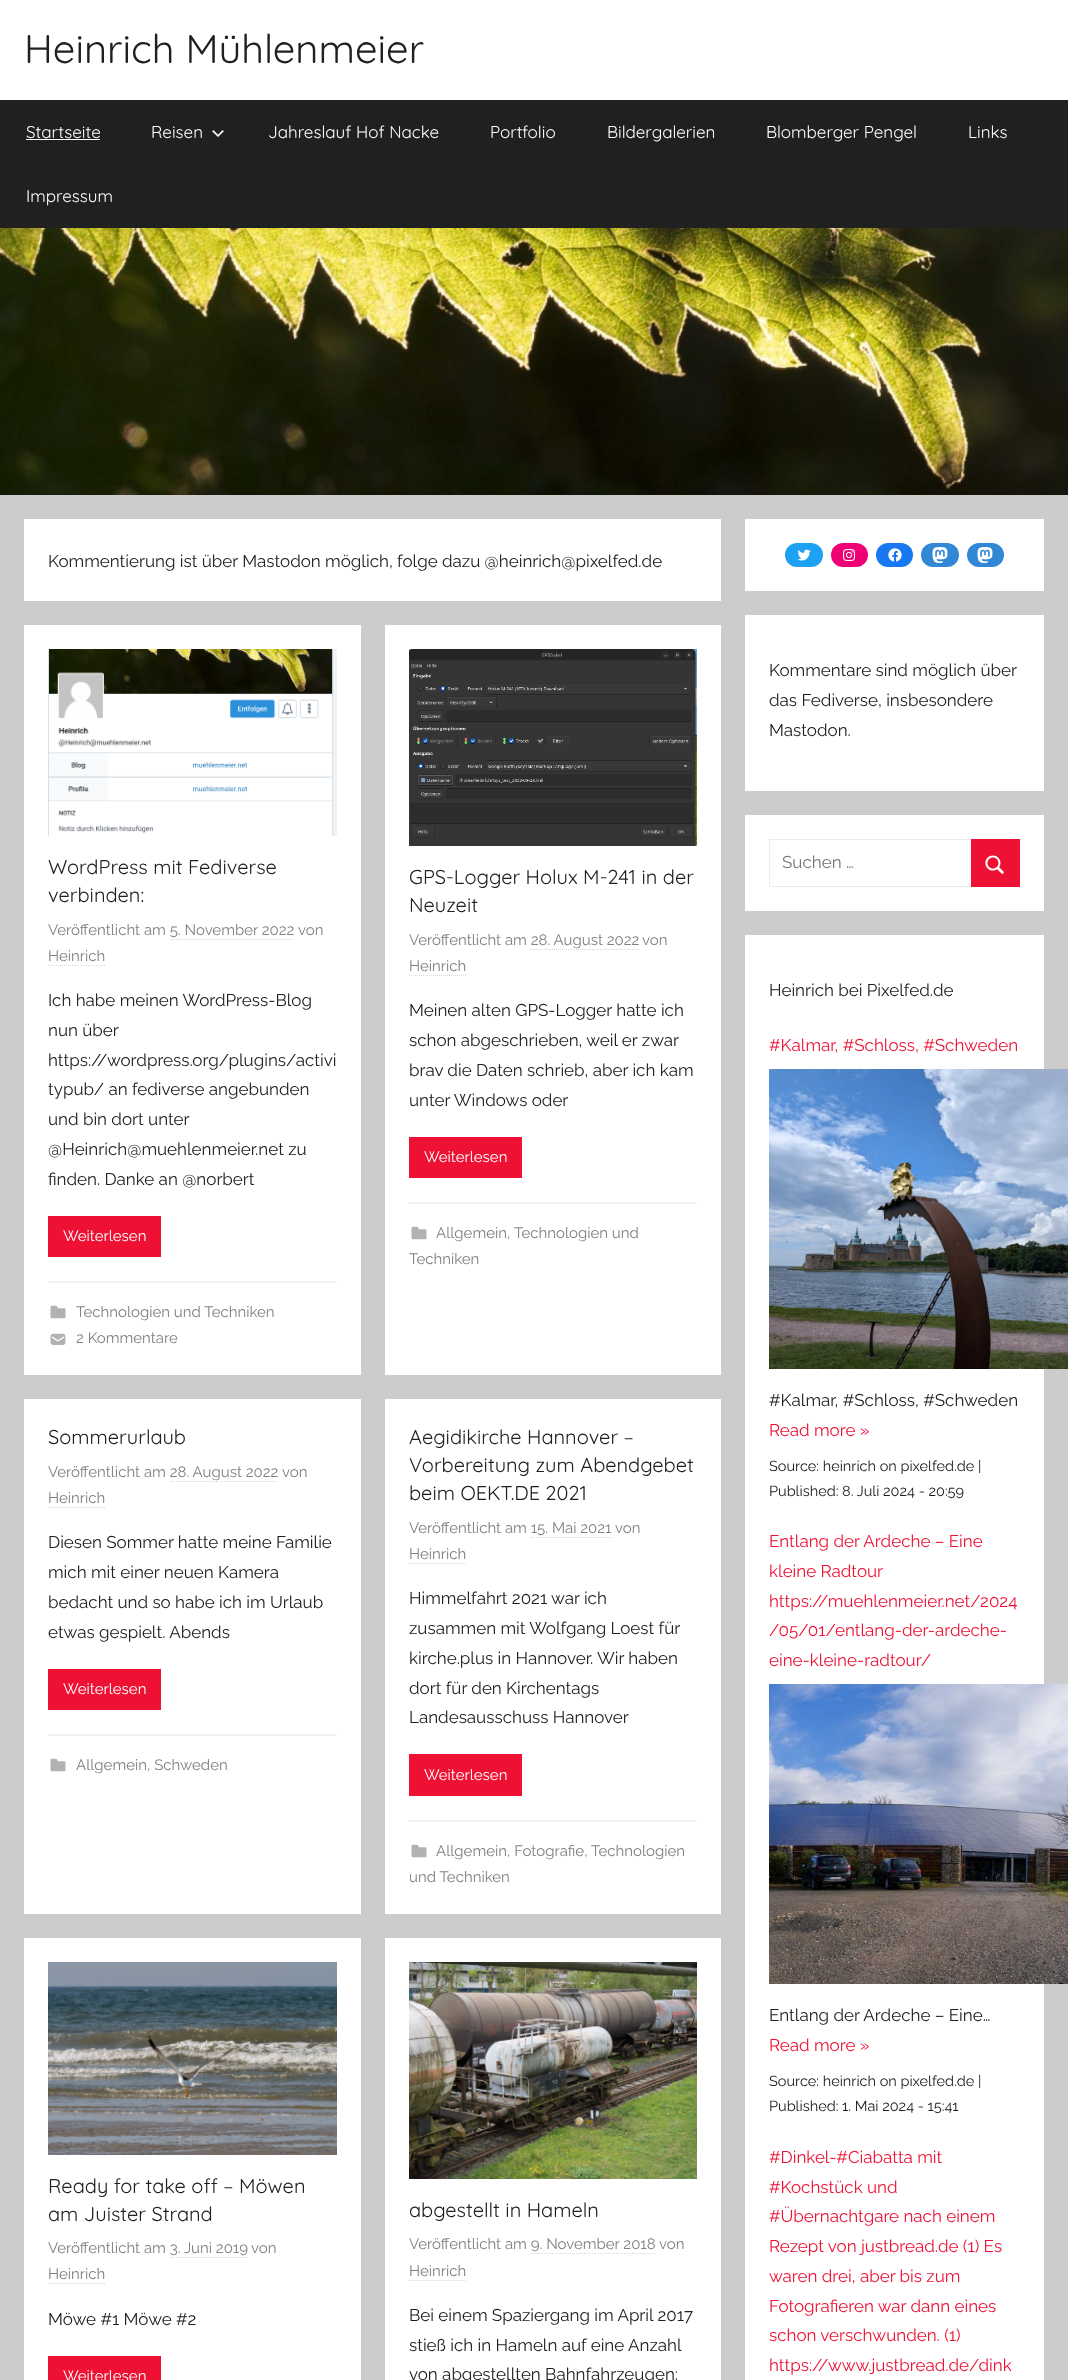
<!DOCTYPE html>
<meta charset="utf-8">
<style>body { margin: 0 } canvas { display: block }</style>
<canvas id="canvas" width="1068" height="2380"></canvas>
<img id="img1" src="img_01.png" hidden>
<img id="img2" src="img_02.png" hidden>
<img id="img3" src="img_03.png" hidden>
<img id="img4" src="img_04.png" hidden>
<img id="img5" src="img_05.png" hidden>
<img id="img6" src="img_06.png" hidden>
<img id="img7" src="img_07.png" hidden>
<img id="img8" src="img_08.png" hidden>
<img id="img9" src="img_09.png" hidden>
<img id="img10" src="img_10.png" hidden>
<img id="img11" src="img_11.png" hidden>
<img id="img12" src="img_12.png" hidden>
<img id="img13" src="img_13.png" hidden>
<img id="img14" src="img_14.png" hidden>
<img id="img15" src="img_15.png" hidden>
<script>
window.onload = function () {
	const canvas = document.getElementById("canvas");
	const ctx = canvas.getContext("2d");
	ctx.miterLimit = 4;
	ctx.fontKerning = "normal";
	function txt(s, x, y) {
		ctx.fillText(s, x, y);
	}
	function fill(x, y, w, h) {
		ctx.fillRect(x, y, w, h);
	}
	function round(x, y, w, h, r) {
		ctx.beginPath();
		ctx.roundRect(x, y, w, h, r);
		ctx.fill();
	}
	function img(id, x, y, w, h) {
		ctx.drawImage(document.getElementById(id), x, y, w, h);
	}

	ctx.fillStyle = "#CCCCCC";
	fill(0, 0, 1068, 2380);
	ctx.fillStyle = "#FFFFFF";
	fill(0, 0, 1068, 100);
	ctx.fillStyle = "#202020";
	fill(0, 100, 1068, 128);
	ctx.fillStyle = "#FFFFFF";
	fill(26, 139, 74, 1);
	img("img1", 212, 130, 12, 7);
	img("img2", 0, 228, 1068, 267);
	fill(24, 519, 697, 82);
	fill(24, 625, 337, 750);
	img("img3", 48, 649, 289, 187);
	ctx.beginPath();
	ctx.moveTo(170, 939.5);
	ctx.lineTo(294, 939.5);
	ctx.strokeStyle = "#D9D9D9";
	ctx.setLineDash([1, 1]);
	ctx.stroke();
	ctx.beginPath();
	ctx.moveTo(48, 965.5);
	ctx.lineTo(105, 965.5);
	ctx.stroke();
	ctx.fillStyle = "#EE1133";
	fill(48, 1216, 113, 41);
	ctx.fillStyle = "#F2F2F2";
	fill(48, 1281, 289, 2);
	img("img4", 50, 1305, 16, 14);
	img("img5", 50, 1333, 16, 12);
	ctx.fillStyle = "#FFFFFF";
	fill(385, 625, 336, 750);
	img("img6", 409, 649, 288, 197);
	ctx.beginPath();
	ctx.moveTo(530, 949.5);
	ctx.lineTo(639, 949.5);
	ctx.stroke();
	ctx.beginPath();
	ctx.moveTo(409, 975.5);
	ctx.lineTo(466, 975.5);
	ctx.stroke();
	ctx.fillStyle = "#EE1133";
	fill(409, 1137, 113, 41);
	ctx.fillStyle = "#F2F2F2";
	fill(409, 1202, 288, 2);
	img("img4", 411, 1226, 16, 14);
	ctx.fillStyle = "#FFFFFF";
	fill(24, 1399, 337, 515);
	ctx.beginPath();
	ctx.moveTo(170, 1481.5);
	ctx.lineTo(278, 1481.5);
	ctx.stroke();
	ctx.beginPath();
	ctx.moveTo(48, 1507.5);
	ctx.lineTo(105, 1507.5);
	ctx.stroke();
	ctx.fillStyle = "#EE1133";
	fill(48, 1669, 113, 41);
	ctx.fillStyle = "#F2F2F2";
	fill(48, 1734, 289, 2);
	img("img4", 50, 1758, 16, 14);
	ctx.fillStyle = "#FFFFFF";
	fill(385, 1399, 336, 515);
	ctx.beginPath();
	ctx.moveTo(530, 1537.5);
	ctx.lineTo(611, 1537.5);
	ctx.stroke();
	ctx.beginPath();
	ctx.moveTo(409, 1563.5);
	ctx.lineTo(466, 1563.5);
	ctx.stroke();
	ctx.fillStyle = "#EE1133";
	fill(409, 1754, 113, 42);
	ctx.fillStyle = "#F2F2F2";
	fill(409, 1820, 288, 2);
	img("img4", 411, 1844, 16, 14);
	ctx.fillStyle = "#FFFFFF";
	fill(24, 1938, 337, 442);
	img("img7", 48, 1962, 289, 193);
	ctx.beginPath();
	ctx.moveTo(170, 2257.5);
	ctx.lineTo(248, 2257.5);
	ctx.stroke();
	ctx.beginPath();
	ctx.moveTo(48, 2283.5);
	ctx.lineTo(105, 2283.5);
	ctx.stroke();
	ctx.fillStyle = "#EE1133";
	fill(48, 2356, 113, 24);
	ctx.fillStyle = "#FFFFFF";
	fill(385, 1938, 336, 442);
	img("img8", 409, 1962, 288, 217);
	ctx.beginPath();
	ctx.moveTo(530, 2253.5);
	ctx.lineTo(655, 2253.5);
	ctx.stroke();
	ctx.beginPath();
	ctx.moveTo(409, 2280.5);
	ctx.lineTo(466, 2280.5);
	ctx.stroke();
	fill(745, 519, 299, 72);
	ctx.fillStyle = "#1DA1F2";
	round(785, 543, 38, 24, 12);
	img("img9", 797, 549, 14, 12);
	ctx.fillStyle = "#F00075";
	round(831, 543, 37, 24, 12);
	img("img10", 843, 549, 12, 12);
	ctx.fillStyle = "#1778F2";
	round(876, 543, 37, 24, 12);
	img("img11", 888, 548, 14, 14);
	ctx.fillStyle = "#3288D4";
	round(921, 543, 38, 24, 12);
	img("img12", 932, 547, 16, 16);
	round(967, 543, 37, 24, 12);
	img("img12", 977, 547, 16, 16);
	ctx.fillStyle = "#FFFFFF";
	fill(745, 615, 299, 176);
	fill(745, 815, 299, 96);
	ctx.strokeStyle = "#ECECEC";
	ctx.setLineDash([]);
	ctx.strokeRect(769.5, 839.5, 250, 47);
	ctx.fillStyle = "#EE1133";
	fill(971, 839, 49, 48);
	img("img13", 985, 855, 20, 20);
	ctx.fillStyle = "#FFFFFF";
	fill(745, 935, 299, 1445);
	img("img14", 769, 1069, 299, 300);
	img("img15", 769, 1684, 299, 300);
	ctx.font = "40px Quicksand";
	ctx.fillStyle = "#202020";
	txt("Heinrich Mühlenmeier", 24, 63);
	ctx.font = "17px Quicksand";
	ctx.fillStyle = "#FFFFFF";
	txt("Startseite", 26, 138);
	txt("Reisen", 151, 138);
	txt("Jahreslauf Hof Nacke", 268, 138);
	txt("Portfolio", 490, 138);
	txt("Bildergalerien", 607, 138);
	txt("Blomberger Pengel", 766, 138);
	txt("Links", 968, 138);
	txt("Impressum", 26, 202);
	ctx.font = "17px Raleway";
	ctx.fillStyle = "#202020";
	txt("Kommentierung ist über Mastodon möglich, folge dazu @heinrich@pixelfed.de", 48, 567);
	ctx.font = "20px Quicksand";
	txt("WordPress mit Fediverse", 48, 874);
	txt("verbinden:", 48, 902);
	ctx.font = "15px Raleway";
	ctx.fillStyle = "#808080";
	txt("Veröffentlicht am 5. November 2022", 48, 935);
	txt("von", 298, 935);
	txt("Heinrich", 48, 961);
	ctx.font = "17px Raleway";
	ctx.fillStyle = "#202020";
	txt("Ich habe meinen WordPress-Blog", 48, 1006);
	txt("nun über", 48, 1036);
	txt("https://wordpress.org/plugins/activi", 48, 1066);
	txt("typub/ an fediverse angebunden", 48, 1095);
	txt("und bin dort unter", 48, 1125);
	txt("@Heinrich@muehlenmeier.net zu", 48, 1155);
	txt("finden. Danke an @norbert", 48, 1185);
	ctx.font = "15px Raleway";
	ctx.fillStyle = "#FFFFFF";
	txt("Weiterlesen", 63, 1241);
	ctx.fillStyle = "#808080";
	txt("Technologien und Techniken", 76, 1317);
	txt("2 Kommentare", 76, 1343);
	ctx.font = "20px Quicksand";
	ctx.fillStyle = "#202020";
	txt("GPS-Logger Holux M-241 in der", 409, 884);
	txt("Neuzeit", 409, 912);
	ctx.font = "15px Raleway";
	ctx.fillStyle = "#808080";
	txt("Veröffentlicht am 28. August 2022", 409, 945);
	txt("von", 642, 945);
	txt("Heinrich", 409, 971);
	ctx.font = "17px Raleway";
	ctx.fillStyle = "#202020";
	txt("Meinen alten GPS-Logger hatte ich", 409, 1016);
	txt("schon abgeschrieben, weil er zwar", 409, 1046);
	txt("brav die Daten schrieb, aber ich kam", 409, 1076);
	txt("unter Windows oder", 409, 1106);
	ctx.font = "15px Raleway";
	ctx.fillStyle = "#FFFFFF";
	txt("Weiterlesen", 424, 1162);
	ctx.fillStyle = "#808080";
	txt("Allgemein,", 436, 1238);
	txt("Technologien und", 514, 1238);
	txt("Techniken", 409, 1264);
	ctx.font = "20px Quicksand";
	ctx.fillStyle = "#202020";
	txt("Sommerurlaub", 48, 1444);
	ctx.font = "15px Raleway";
	ctx.fillStyle = "#808080";
	txt("Veröffentlicht am 28. August 2022", 48, 1477);
	txt("von", 282, 1477);
	txt("Heinrich", 48, 1503);
	ctx.font = "17px Raleway";
	ctx.fillStyle = "#202020";
	txt("Diesen Sommer hatte meine Familie", 48, 1548);
	txt("mich mit einer neuen Kamera", 48, 1578);
	txt("bedacht und so habe ich im Urlaub", 48, 1608);
	txt("etwas gespielt. Abends", 48, 1638);
	ctx.font = "15px Raleway";
	ctx.fillStyle = "#FFFFFF";
	txt("Weiterlesen", 63, 1694);
	ctx.fillStyle = "#808080";
	txt("Allgemein, Schweden", 76, 1770);
	ctx.font = "20px Quicksand";
	ctx.fillStyle = "#202020";
	txt("Aegidikirche Hannover –", 409, 1444);
	txt("Vorbereitung zum Abendgebet", 409, 1472);
	txt("beim OEKT.DE 2021", 409, 1500);
	ctx.font = "15px Raleway";
	ctx.fillStyle = "#808080";
	txt("Veröffentlicht am 15. Mai 2021", 409, 1533);
	txt("von", 615, 1533);
	txt("Heinrich", 409, 1559);
	ctx.font = "17px Raleway";
	ctx.fillStyle = "#202020";
	txt("Himmelfahrt 2021 war ich", 409, 1604);
	txt("zusammen mit Wolfgang Loest für", 409, 1634);
	txt("kirche.plus in Hannover. Wir haben", 409, 1664);
	txt("dort für den Kirchentags", 409, 1694);
	txt("Landesausschuss Hannover", 409, 1723);
	ctx.font = "15px Raleway";
	ctx.fillStyle = "#FFFFFF";
	txt("Weiterlesen", 424, 1780);
	ctx.fillStyle = "#808080";
	txt("Allgemein, Fotografie,", 436, 1856);
	txt("Technologien", 591, 1856);
	txt("und Techniken", 409, 1882);
	ctx.font = "20px Quicksand";
	ctx.fillStyle = "#202020";
	txt("Ready for take off – Möwen", 48, 2193);
	txt("am Juister Strand", 48, 2221);
	ctx.font = "15px Raleway";
	ctx.fillStyle = "#808080";
	txt("Veröffentlicht am 3. Juni 2019", 48, 2253);
	txt("von", 251, 2253);
	txt("Heinrich", 48, 2279);
	ctx.font = "17px Raleway";
	ctx.fillStyle = "#202020";
	txt("Möwe #1 Möwe #2", 48, 2325);
	ctx.font = "15px Raleway";
	ctx.fillStyle = "#FFFFFF";
	txt("Weiterlesen", 63, 2381);
	ctx.font = "20px Quicksand";
	ctx.fillStyle = "#202020";
	txt("abgestellt in Hameln", 409, 2217);
	ctx.font = "15px Raleway";
	ctx.fillStyle = "#808080";
	txt("Veröffentlicht am 9. November 2018", 409, 2249);
	txt("von", 659, 2249);
	txt("Heinrich", 409, 2276);
	ctx.font = "17px Raleway";
	ctx.fillStyle = "#202020";
	txt("Bei einem Spaziergang im April 2017", 409, 2321);
	txt("stieß ich in Hameln auf eine Anzahl", 409, 2351);
	txt("von abgestellten Bahnfahrzeugen:", 409, 2380);
	txt("Kommentare sind möglich über", 769, 676);
	txt("das Fediverse, insbesondere", 769, 706);
	txt("Mastodon.", 769, 736);
	ctx.fillStyle = "#757575";
	txt("Suchen …", 782, 868);
	ctx.fillStyle = "#202020";
	txt("Heinrich bei Pixelfed.de", 769, 996);
	ctx.fillStyle = "#EE1133";
	txt("#Kalmar, #Schloss, #Schweden", 769, 1051);
	ctx.fillStyle = "#202020";
	txt("#Kalmar, #Schloss, #Schweden", 769, 1406);
	ctx.fillStyle = "#EE1133";
	txt("Read more »", 769, 1436);
	ctx.font = "14.5px Raleway";
	ctx.fillStyle = "#202020";
	txt("Source: heinrich on pixelfed.de |", 769, 1471);
	txt("Published: 8. Juli 2024 - 20:59", 769, 1496);
	ctx.font = "17px Raleway";
	ctx.fillStyle = "#EE1133";
	txt("Entlang der Ardeche – Eine", 769, 1547);
	txt("kleine Radtour", 769, 1577);
	txt("https://muehlenmeier.net/2024", 769, 1607);
	txt("/05/01/entlang-der-ardeche-", 769, 1636);
	txt("eine-kleine-radtour/", 769, 1666);
	ctx.fillStyle = "#202020";
	txt("Entlang der Ardeche – Eine…", 769, 2021);
	ctx.fillStyle = "#EE1133";
	txt("Read more »", 769, 2051);
	ctx.font = "14.5px Raleway";
	ctx.fillStyle = "#202020";
	txt("Source: heinrich on pixelfed.de |", 769, 2086);
	txt("Published: 1. Mai 2024 - 15:41", 769, 2111);
	ctx.font = "17px Raleway";
	ctx.fillStyle = "#EE1133";
	txt("#Dinkel-#Ciabatta mit", 769, 2163);
	txt("#Kochstück und", 769, 2193);
	txt("#Übernachtgare nach einem", 769, 2222);
	txt("Rezept von justbread.de (1) Es", 769, 2252);
	txt("waren drei, aber bis zum", 769, 2282);
	txt("Fotografieren war dann eines", 769, 2312);
	txt("schon verschwunden. (1)", 769, 2341);
	txt("https://www.justbread.de/dink", 769, 2371);
};
</script>
